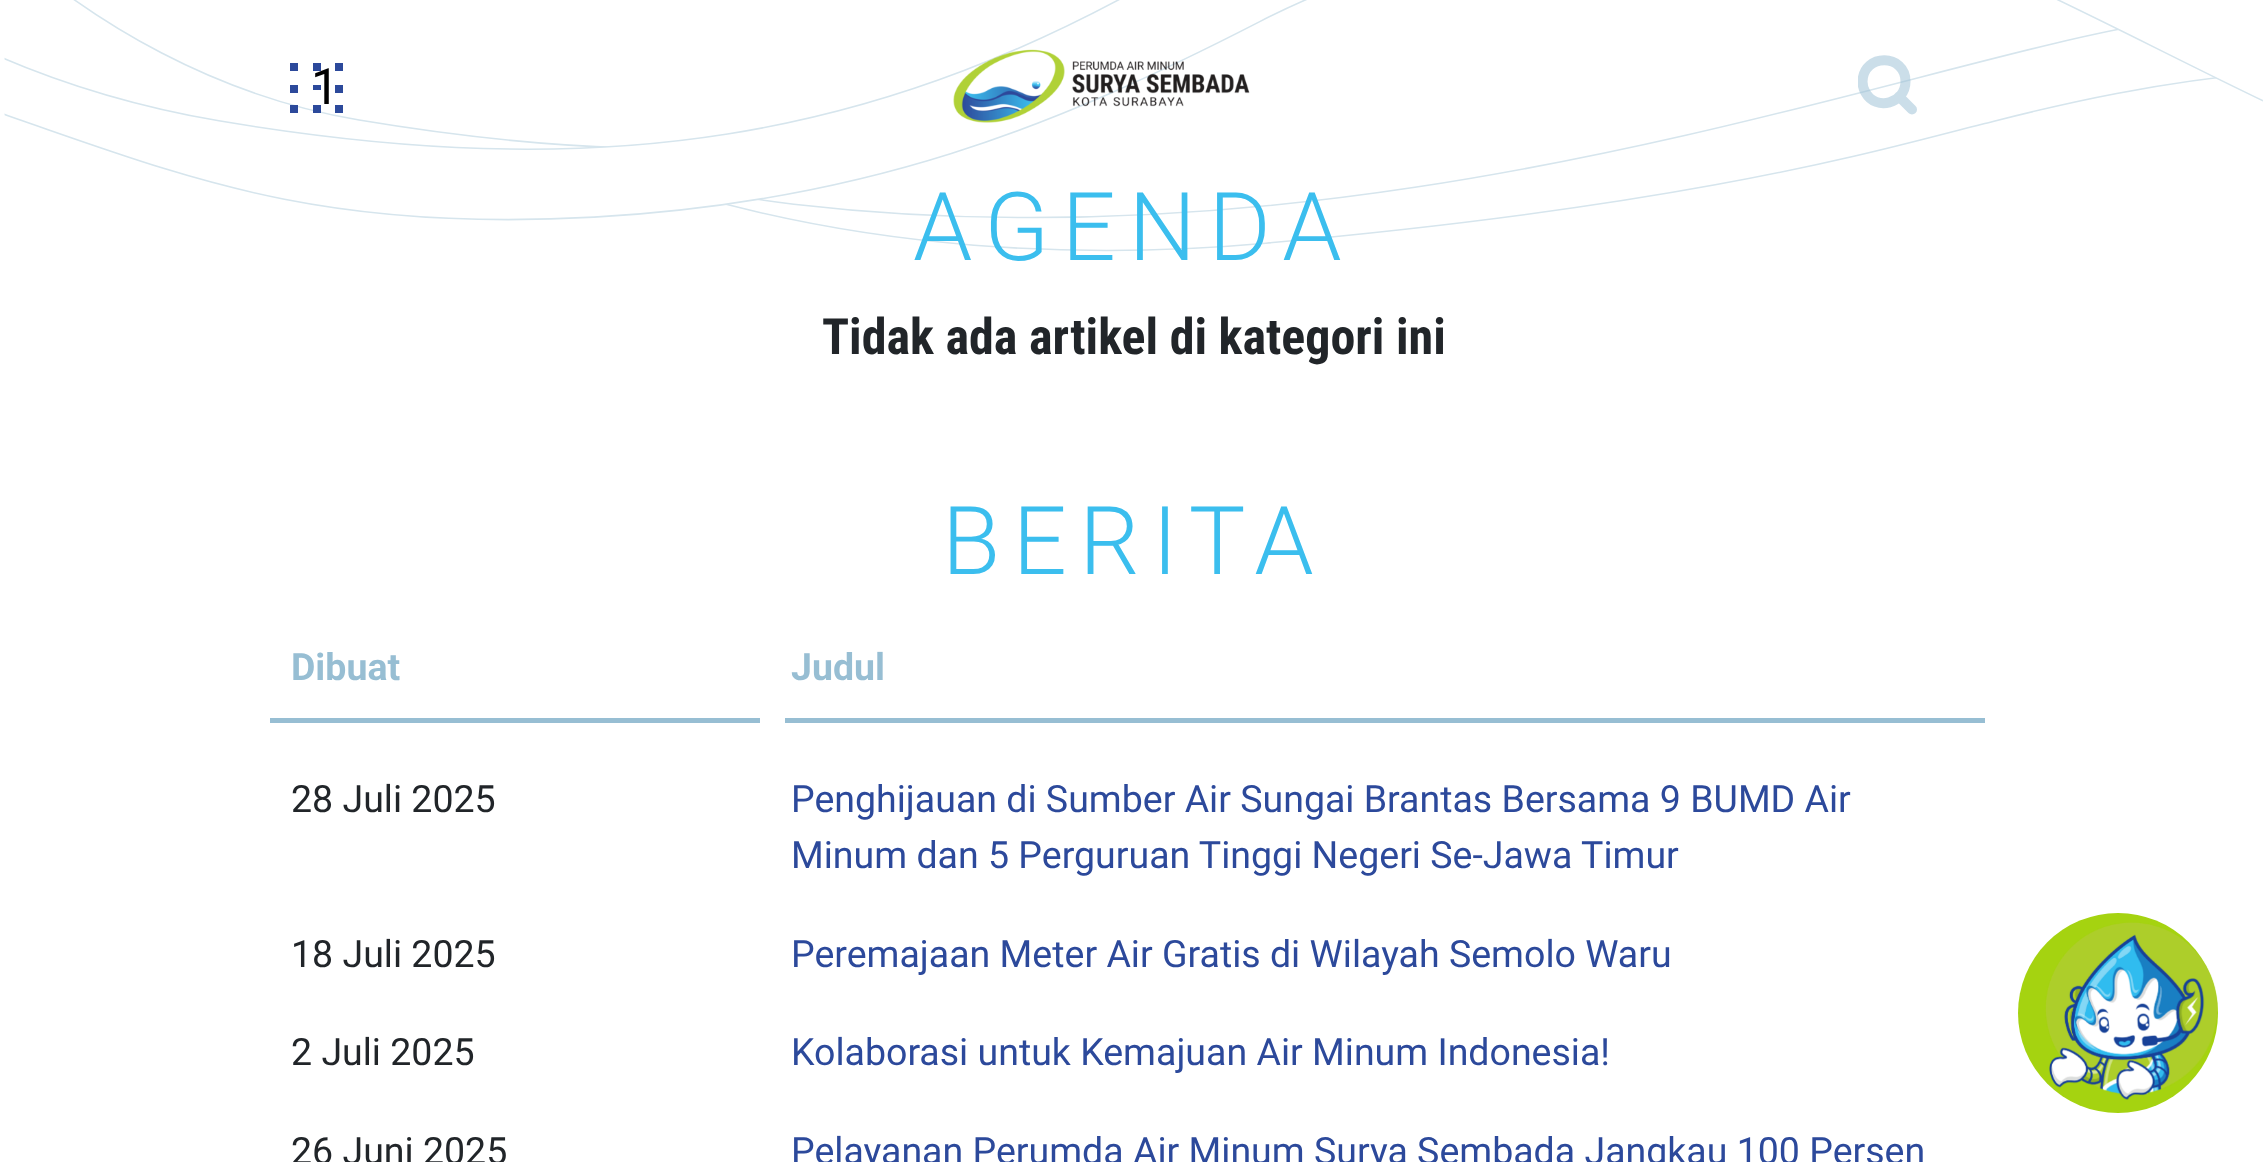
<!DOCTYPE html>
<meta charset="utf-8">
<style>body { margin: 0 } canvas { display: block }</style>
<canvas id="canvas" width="2267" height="1162"></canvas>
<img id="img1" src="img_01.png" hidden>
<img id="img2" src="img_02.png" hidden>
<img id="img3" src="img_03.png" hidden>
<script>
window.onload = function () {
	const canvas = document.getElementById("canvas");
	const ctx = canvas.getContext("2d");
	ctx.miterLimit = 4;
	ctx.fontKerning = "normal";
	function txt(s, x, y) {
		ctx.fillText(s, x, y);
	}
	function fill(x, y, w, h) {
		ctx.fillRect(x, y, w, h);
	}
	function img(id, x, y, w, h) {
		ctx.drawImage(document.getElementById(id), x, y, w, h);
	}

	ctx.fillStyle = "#FFFFFF";
	fill(0, 0, 2267, 1162);
	img("img1", 4, 0, 2259, 252);
	ctx.fillStyle = "#2C499B";
	fill(313, 63, 8, 8);
	fill(290, 63, 8, 8);
	fill(335, 63, 8, 8);
	fill(290, 85, 8, 8);
	fill(335, 85, 8, 8);
	fill(313, 105, 8, 8);
	fill(290, 105, 8, 8);
	fill(335, 105, 8, 8);
	img("img2", 953, 49, 297, 74);
	ctx.save();
	ctx.beginPath();
	ctx.rect(1858, 55, 60, 60);
	ctx.clip();
	ctx.beginPath();
	ctx.moveTo(1905.5, 81.5);
	ctx.bezierCurveTo(1905.5, 103.5, 1876, 111.5, 1865.5, 92.5);
	ctx.bezierCurveTo(1863.5, 89, 1862.5, 85, 1862.5, 81.5);
	ctx.bezierCurveTo(1863.5, 53, 1905.5, 53.5, 1905.5, 81.5);
	ctx.closePath();
	ctx.moveTo(1899, 96.5);
	ctx.lineTo(1912, 109.5);
	ctx.strokeStyle = "rgba(151, 190, 211, 0.5)";
	ctx.lineWidth = 10;
	ctx.lineCap = "round";
	ctx.lineJoin = "round";
	ctx.stroke();
	ctx.restore();
	ctx.fillStyle = "#97BED3";
	fill(270, 718, 490, 5);
	fill(785, 718, 1200, 5);
	ctx.fillStyle = "#A5D310";
	ctx.beginPath();
	ctx.arc(2118, 1013, 100, 0, Math.PI * 2);
	ctx.fill();
	img("img3", 2045, 922, 173, 178);
	ctx.font = "50px Roboto";
	ctx.fillStyle = "#000000";
	txt("1", 311, 104);
	ctx.fillStyle = "#2C499B";
	fill(313, 85, 8, 5);
	ctx.letterSpacing = "12.5px";
	ctx.font = "300 95px Roboto";
	ctx.fillStyle = "#3BBEEE";
	txt("AGENDA", 913, 260);
	ctx.letterSpacing = "0px";
	ctx.font = "bold 50px Roboto Condensed";
	ctx.fillStyle = "#212529";
	txt("Tidak ada artikel di kategori ini", 822, 354);
	ctx.letterSpacing = "12.5px";
	ctx.font = "300 95px Roboto";
	ctx.fillStyle = "#3BBEEE";
	txt("BERITA", 942, 574);
	ctx.letterSpacing = "0px";
	ctx.font = "bold 37.5px Roboto";
	ctx.fillStyle = "#97BED3";
	txt("Dibuat", 291, 680);
	txt("Judul", 791, 680);
	ctx.font = "37.5px Roboto";
	ctx.fillStyle = "#212529";
	txt("28 Juli 2025", 291, 812);
	ctx.fillStyle = "#2C499B";
	txt("Penghijauan di Sumber Air Sungai Brantas Bersama 9 BUMD Air", 791, 812);
	txt("Minum dan 5 Perguruan Tinggi Negeri Se-Jawa Timur", 791, 868);
	ctx.fillStyle = "#212529";
	txt("18 Juli 2025", 291, 967);
	ctx.fillStyle = "#2C499B";
	txt("Peremajaan Meter Air Gratis di Wilayah Semolo Waru", 791, 967);
	ctx.fillStyle = "#212529";
	txt("2 Juli 2025", 291, 1065);
	ctx.fillStyle = "#2C499B";
	txt("Kolaborasi untuk Kemajuan Air Minum Indonesia!", 791, 1065);
	ctx.fillStyle = "#212529";
	txt("26 Juni 2025", 291, 1164);
	ctx.fillStyle = "#2C499B";
	txt("Pelayanan Perumda Air Minum Surya Sembada Jangkau 100 Persen", 791, 1164);
};
</script>
